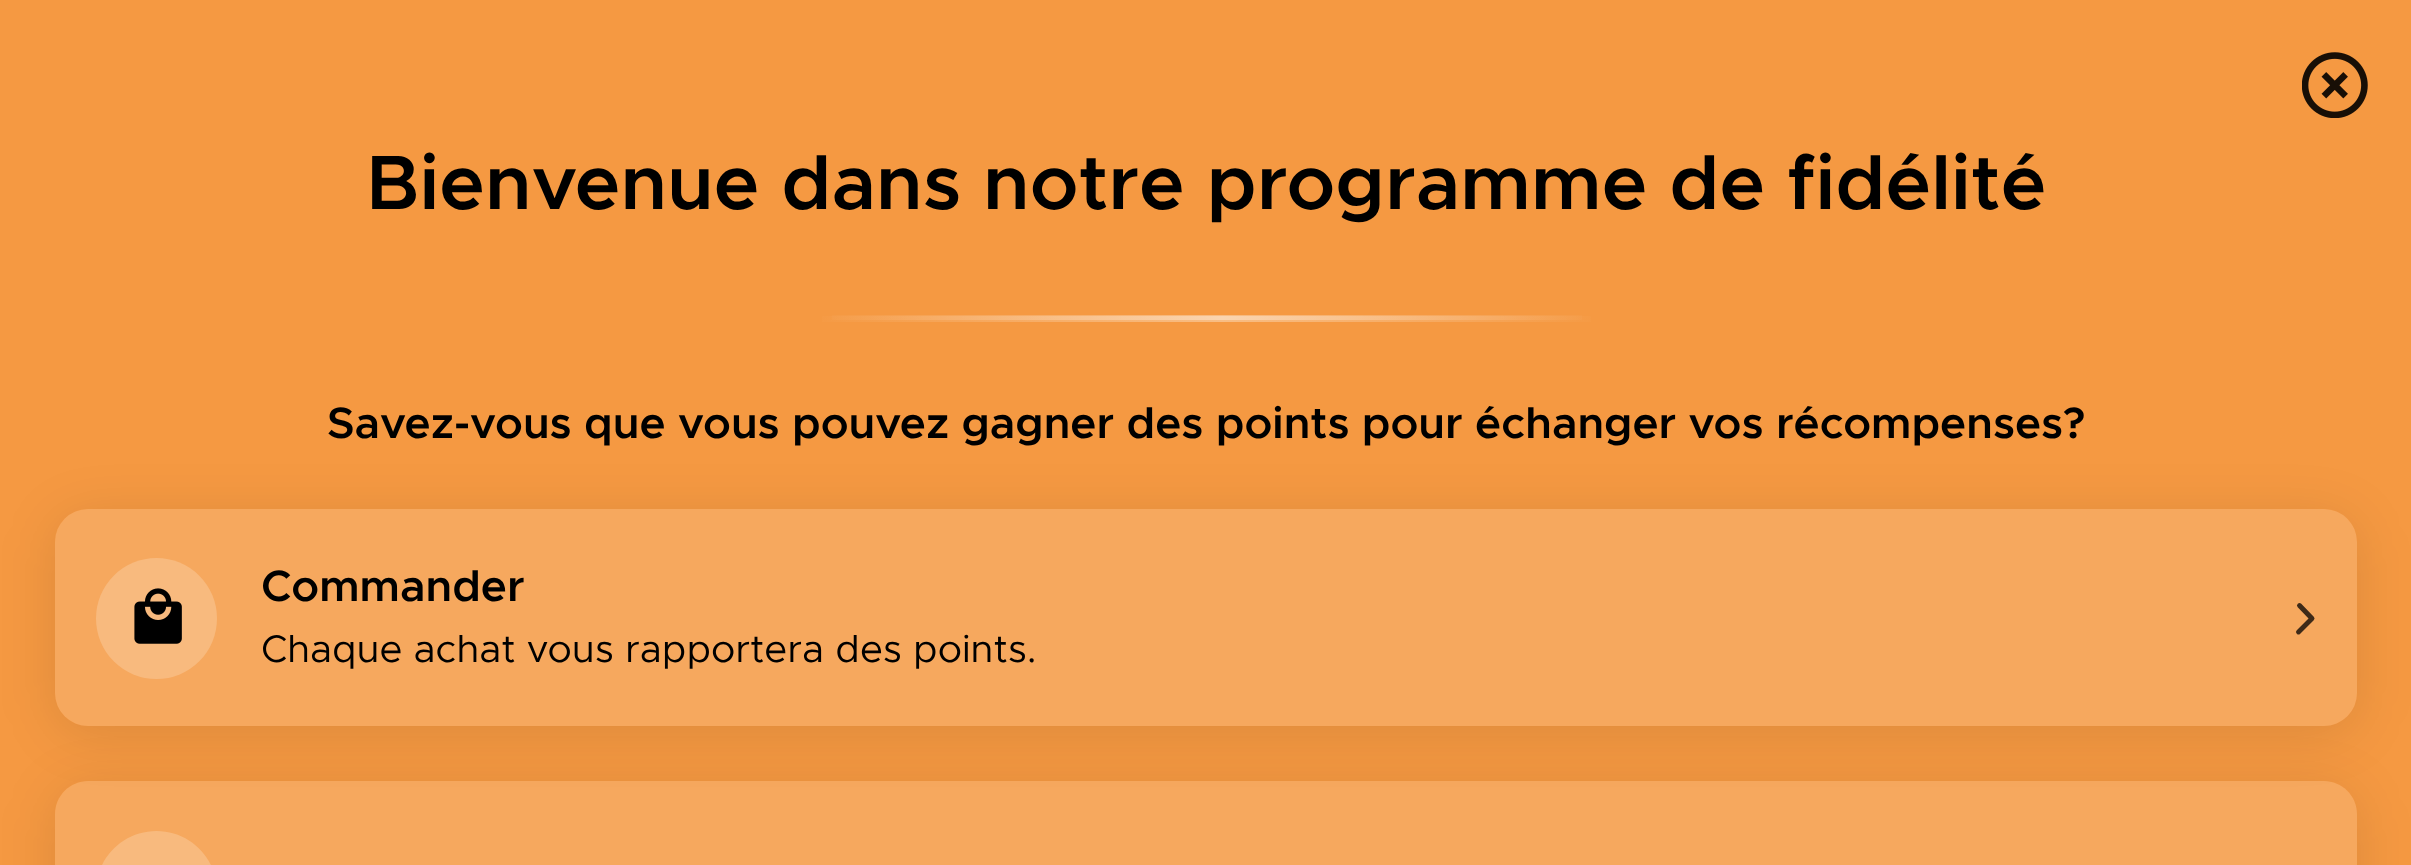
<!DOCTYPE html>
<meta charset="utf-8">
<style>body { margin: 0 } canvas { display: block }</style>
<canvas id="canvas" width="2411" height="865"></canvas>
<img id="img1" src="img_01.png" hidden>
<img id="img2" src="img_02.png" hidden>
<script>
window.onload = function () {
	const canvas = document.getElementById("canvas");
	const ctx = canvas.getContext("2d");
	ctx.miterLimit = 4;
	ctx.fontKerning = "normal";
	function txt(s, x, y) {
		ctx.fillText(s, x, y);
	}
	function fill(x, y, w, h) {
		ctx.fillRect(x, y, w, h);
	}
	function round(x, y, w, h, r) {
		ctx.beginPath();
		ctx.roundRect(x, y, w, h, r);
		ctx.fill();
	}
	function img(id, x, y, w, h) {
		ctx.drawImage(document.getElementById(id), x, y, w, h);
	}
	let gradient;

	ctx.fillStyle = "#F59942";
	fill(0, 0, 2411, 865);
	img("img1", 2302, 52, 66, 66);
	gradient = ctx.createLinearGradient(806, 319, 1606, 319);
	gradient.addColorStop(0, "#F59942");
	gradient.addColorStop(0.52, "#F8BD84");
	gradient.addColorStop(1, "#F59942");
	ctx.fillStyle = gradient;
	fill(822, 316, 769, 6);
	gradient = ctx.createLinearGradient(806, 318, 1606, 318);
	gradient.addColorStop(0, "rgba(255, 255, 255, 0)");
	gradient.addColorStop(0.52, "rgba(255, 255, 255, 0.35)");
	gradient.addColorStop(1, "rgba(255, 255, 255, 0)");
	ctx.fillStyle = gradient;
	fill(832, 315, 750, 5);
	ctx.save();
	ctx.beginPath();
	ctx.moveTo(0, 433);
	ctx.lineTo(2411, 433);
	ctx.lineTo(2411, 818);
	ctx.lineTo(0, 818);
	ctx.closePath();
	ctx.moveTo(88, 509);
	ctx.lineTo(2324, 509);
	ctx.bezierCurveTo(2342, 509, 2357, 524, 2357, 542);
	ctx.lineTo(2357, 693);
	ctx.bezierCurveTo(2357, 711, 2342, 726, 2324, 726);
	ctx.lineTo(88, 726);
	ctx.bezierCurveTo(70, 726, 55, 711, 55, 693);
	ctx.lineTo(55, 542);
	ctx.bezierCurveTo(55, 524, 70, 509, 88, 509);
	ctx.closePath();
	ctx.clip("evenodd");
	ctx.fillStyle = "rgba(0, 0, 0, 0.1)";
	ctx.filter = "blur(27.5px)";
	ctx.beginPath();
	ctx.roundRect(55, 517, 2302, 217, 33);
	ctx.fill();
	ctx.filter = "none";
	ctx.restore();
	ctx.fillStyle = "rgba(255, 255, 255, 0.15)";
	round(55, 509, 2302, 217, 33);
	ctx.fillStyle = "#F8BA7E";
	ctx.beginPath();
	ctx.arc(156.5, 618.5, 60.5, 0, Math.PI * 2);
	ctx.fill();
	img("img2", 134, 588, 48, 56);
	ctx.beginPath();
	ctx.moveTo(2299.5, 605.5);
	ctx.lineTo(2312, 618.5);
	ctx.lineTo(2298.5, 632);
	ctx.strokeStyle = "#3E2A18";
	ctx.lineWidth = 4.9;
	ctx.lineCap = "round";
	ctx.lineJoin = "round";
	ctx.stroke();
	ctx.save();
	ctx.beginPath();
	ctx.moveTo(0, 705);
	ctx.lineTo(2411, 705);
	ctx.lineTo(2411, 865);
	ctx.lineTo(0, 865);
	ctx.closePath();
	ctx.moveTo(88, 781);
	ctx.lineTo(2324, 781);
	ctx.bezierCurveTo(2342, 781, 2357, 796, 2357, 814);
	ctx.lineTo(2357, 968);
	ctx.bezierCurveTo(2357, 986, 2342, 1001, 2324, 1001);
	ctx.lineTo(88, 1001);
	ctx.bezierCurveTo(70, 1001, 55, 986, 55, 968);
	ctx.lineTo(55, 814);
	ctx.bezierCurveTo(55, 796, 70, 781, 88, 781);
	ctx.closePath();
	ctx.clip("evenodd");
	ctx.fillStyle = "rgba(0, 0, 0, 0.1)";
	ctx.filter = "blur(27.5px)";
	ctx.beginPath();
	ctx.roundRect(55, 789, 2302, 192, 33);
	ctx.fill();
	ctx.filter = "none";
	ctx.restore();
	ctx.fillStyle = "rgba(255, 255, 255, 0.15)";
	ctx.beginPath();
	ctx.moveTo(88, 781);
	ctx.lineTo(2324, 781);
	ctx.bezierCurveTo(2342, 781, 2357, 796, 2357, 814);
	ctx.lineTo(2357, 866);
	ctx.lineTo(55, 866);
	ctx.lineTo(55, 814);
	ctx.bezierCurveTo(55, 796, 70, 781, 88, 781);
	ctx.closePath();
	ctx.fill();
	ctx.fillStyle = "#F8BA7E";
	ctx.beginPath();
	ctx.moveTo(156.5, 831);
	ctx.bezierCurveTo(190, 831, 217, 858, 217, 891.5);
	ctx.lineTo(217, 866);
	ctx.lineTo(96, 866);
	ctx.lineTo(96, 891.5);
	ctx.bezierCurveTo(96, 858, 123, 831, 156.5, 831);
	ctx.closePath();
	ctx.fill();
	ctx.font = "600 77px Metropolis";
	ctx.fillStyle = "#000000";
	txt("Bienvenue dans notre programme de fidélité", 366, 209);
	ctx.font = "600 44px Metropolis";
	txt("Savez-vous que vous pouvez gagner des points pour échanger vos récompenses?", 327, 438);
	txt("Commander", 261, 601);
	ctx.font = "38.5px Metropolis";
	txt("Chaque achat vous rapportera des points.", 261, 662);
};
</script>
